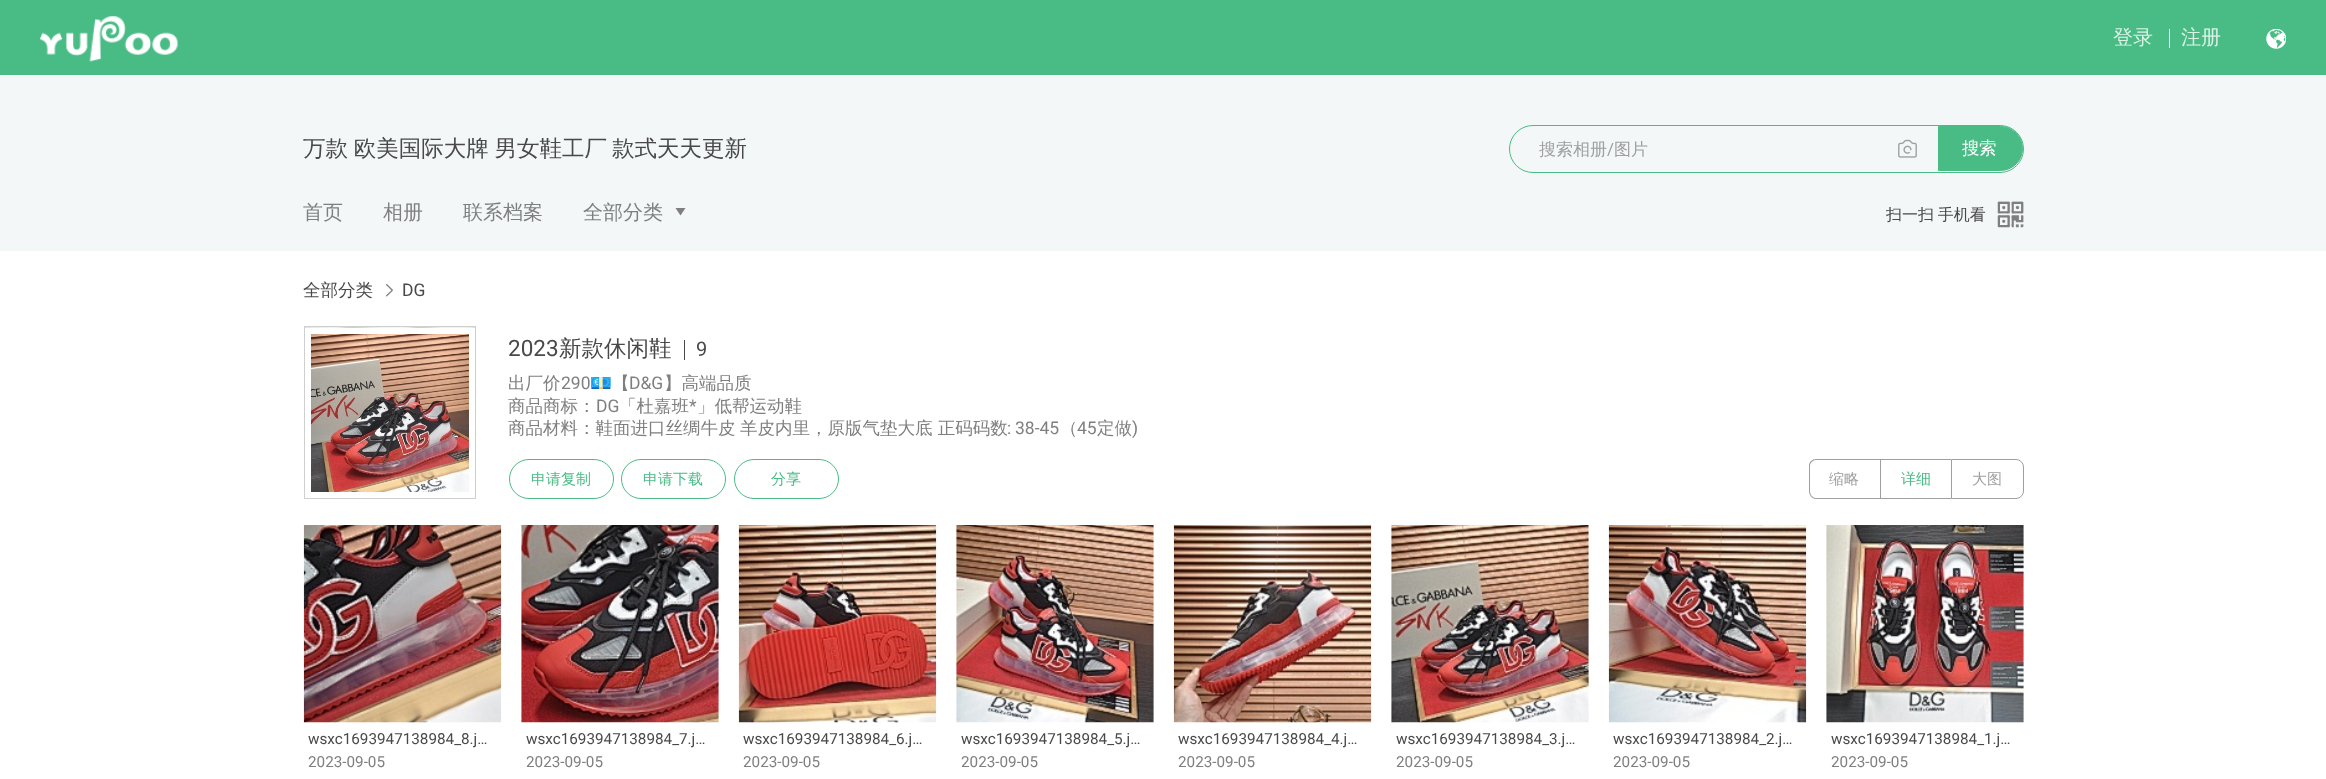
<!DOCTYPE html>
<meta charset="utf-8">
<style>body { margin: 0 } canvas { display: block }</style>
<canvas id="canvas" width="2326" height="779"></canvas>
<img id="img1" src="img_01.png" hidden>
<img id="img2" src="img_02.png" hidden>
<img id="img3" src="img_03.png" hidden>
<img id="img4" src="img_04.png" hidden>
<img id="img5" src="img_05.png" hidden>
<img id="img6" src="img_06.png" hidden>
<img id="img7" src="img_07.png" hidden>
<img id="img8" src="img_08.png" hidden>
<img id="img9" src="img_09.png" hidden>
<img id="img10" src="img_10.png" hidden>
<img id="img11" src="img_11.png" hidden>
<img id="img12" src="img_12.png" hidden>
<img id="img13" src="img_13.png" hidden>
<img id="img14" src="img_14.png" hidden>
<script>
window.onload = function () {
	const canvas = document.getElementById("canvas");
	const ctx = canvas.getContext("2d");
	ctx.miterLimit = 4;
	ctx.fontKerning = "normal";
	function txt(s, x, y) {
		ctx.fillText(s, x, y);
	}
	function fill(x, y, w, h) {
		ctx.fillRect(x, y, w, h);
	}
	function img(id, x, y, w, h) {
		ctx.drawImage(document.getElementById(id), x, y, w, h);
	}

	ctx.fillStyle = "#FFFFFF";
	fill(0, 0, 2326, 779);
	ctx.fillStyle = "#49BC85";
	fill(0, 0, 2326, 75);
	img("img1", 40, 16, 138, 46);
	ctx.fillStyle = "#FFFFFF";
	fill(2169, 29, 1, 19);
	img("img2", 2266, 29, 20, 20);
	ctx.fillStyle = "#F3F7F7";
	fill(0, 75, 2326, 176);
	ctx.beginPath();
	ctx.roundRect(1509.5, 125.5, 514, 47, 23.5);
	ctx.strokeStyle = "#49BC85";
	ctx.stroke();
	img("img3", 1898, 139, 19, 19);
	ctx.fillStyle = "#49BC85";
	ctx.beginPath();
	ctx.roundRect(1938.5, 126.5, 84, 44, [0, 22, 22, 0]);
	ctx.fill();
	ctx.stroke();
	ctx.fillStyle = "#7F7F7F";
	ctx.beginPath();
	ctx.moveTo(680.5, 215.5);
	ctx.lineTo(675.5, 208);
	ctx.lineTo(685.5, 208);
	ctx.closePath();
	ctx.fill();
	img("img4", 1997, 201, 27, 27);
	img("img5", 386, 284, 7, 13);
	ctx.strokeStyle = "#CFCFCF";
	ctx.strokeRect(304.5, 326.5, 171, 172);
	img("img6", 305, 327, 170, 165);
	ctx.strokeStyle = "#FFFFFF";
	ctx.lineWidth = 6;
	ctx.strokeRect(308, 331, 164, 164);
	ctx.fillStyle = "#494949";
	fill(684, 340, 1, 20);
	ctx.beginPath();
	ctx.roundRect(509.5, 459.5, 104, 39, 19.5);
	ctx.strokeStyle = "#49BC85";
	ctx.lineWidth = 1;
	ctx.stroke();
	ctx.beginPath();
	ctx.roundRect(621.5, 459.5, 104, 39, 19.5);
	ctx.stroke();
	ctx.beginPath();
	ctx.roundRect(734.5, 459.5, 104, 39, 19.5);
	ctx.stroke();
	ctx.fillStyle = "#9F9F9F";
	ctx.beginPath();
	ctx.moveTo(1816, 459);
	ctx.lineTo(1880, 459);
	ctx.lineTo(1880, 499);
	ctx.lineTo(1816, 499);
	ctx.bezierCurveTo(1812, 499, 1809, 495, 1809, 491);
	ctx.lineTo(1809, 466);
	ctx.bezierCurveTo(1809, 462, 1812, 459, 1816, 459);
	ctx.closePath();
	ctx.moveTo(1816, 460);
	ctx.lineTo(1880, 460);
	ctx.lineTo(1880, 498);
	ctx.lineTo(1816, 498);
	ctx.bezierCurveTo(1813, 498, 1810, 495, 1810, 491);
	ctx.lineTo(1810, 466);
	ctx.bezierCurveTo(1810, 463, 1813, 460, 1816, 460);
	ctx.closePath();
	ctx.fill("evenodd");
	fill(1880, 459, 71, 1);
	fill(1880, 498, 71, 1);
	fill(1880, 459, 1, 40);
	ctx.beginPath();
	ctx.roundRect(1951.5, 459.5, 72, 39, [0, 7.5, 7.5, 0]);
	ctx.strokeStyle = "#9F9F9F";
	ctx.stroke();
	img("img7", 303, 525, 199, 198);
	img("img8", 521, 525, 198, 198);
	img("img9", 738, 525, 199, 198);
	img("img10", 956, 525, 198, 198);
	img("img11", 1173, 525, 199, 198);
	img("img12", 1391, 525, 198, 198);
	img("img13", 1608, 525, 199, 198);
	img("img14", 1826, 525, 198, 198);
	ctx.font = "500 20px WenQuanYi Zen Hei";
	ctx.fillStyle = "#DBF2E7";
	txt("登录", 2113, 44);
	txt("注册", 2181, 44);
	ctx.wordSpacing = "-1px";
	ctx.font = "500 22.5px WenQuanYi Zen Hei";
	ctx.fillStyle = "#494949";
	txt("万款 欧美国际大牌 男女鞋工厂", 303, 156);
	ctx.wordSpacing = "0px";
	txt("款式天天更新", 612, 156);
	ctx.font = "500 17px WenQuanYi Zen Hei";
	ctx.fillStyle = "#9F9F9F";
	txt("搜索相册", 1539, 155);
	ctx.font = "17px Roboto";
	txt("/", 1607, 155);
	ctx.font = "500 17px WenQuanYi Zen Hei";
	txt("图片", 1614, 155);
	ctx.font = "17.5px Noto Sans";
	ctx.fillStyle = "#FFFFFF";
	txt("搜", 1962, 154);
	ctx.font = "500 17.5px WenQuanYi Zen Hei";
	txt("索", 1979, 154);
	ctx.font = "500 20px WenQuanYi Zen Hei";
	ctx.fillStyle = "#7F7F7F";
	txt("首页", 303, 219);
	txt("相册", 383, 219);
	txt("联系档案", 463, 219);
	txt("全部分类", 583, 219);
	ctx.wordSpacing = "-1px";
	ctx.font = "500 16px WenQuanYi Zen Hei";
	ctx.fillStyle = "#494949";
	txt("扫一扫 手机看", 1886, 220);
	ctx.wordSpacing = "0px";
	ctx.font = "500 17.5px WenQuanYi Zen Hei";
	txt("全部分类", 303, 296);
	ctx.font = "17.5px Roboto";
	txt("DG", 402, 296);
	ctx.font = "22.5px Roboto";
	txt("2023", 508, 356);
	ctx.font = "500 22.5px WenQuanYi Zen Hei";
	txt("新款休闲鞋", 559, 356);
	ctx.font = "20px Roboto";
	txt("9", 696, 356);
	ctx.font = "500 17.5px WenQuanYi Zen Hei";
	ctx.fillStyle = "#7F7F7F";
	txt("出厂价", 508, 389);
	ctx.font = "17.5px Roboto";
	txt("290", 561, 389);
	ctx.font = "17.5px Noto Color Emoji";
	txt("💶", 590, 389);
	ctx.font = "500 17.5px WenQuanYi Zen Hei";
	txt("【", 612, 389);
	ctx.font = "17.5px Roboto";
	txt("D&G", 629, 389);
	ctx.font = "500 17.5px WenQuanYi Zen Hei";
	txt("】高端品质", 664, 389);
	txt("商品商标：", 508, 412);
	ctx.font = "17.5px Roboto";
	txt("DG", 596, 412);
	ctx.font = "500 17.5px WenQuanYi Zen Hei";
	txt("「杜嘉班", 619, 412);
	ctx.font = "17.5px Roboto";
	txt("*", 689, 412);
	ctx.font = "500 17.5px WenQuanYi Zen Hei";
	txt("」低帮运动鞋", 697, 412);
	txt("商品材料：鞋面进口丝绸牛皮", 508, 434);
	txt("羊皮内里，原版气垫大底 正码码数", 740, 434);
	ctx.font = "17.5px Roboto";
	txt(":", 1007, 434);
	txt("38-45", 1015, 434);
	ctx.font = "500 17.5px WenQuanYi Zen Hei";
	txt("（", 1060, 434);
	ctx.font = "17.5px Roboto";
	txt("45", 1077, 434);
	ctx.font = "500 17.5px WenQuanYi Zen Hei";
	txt("定做", 1097, 434);
	ctx.font = "17.5px Roboto";
	txt(")", 1132, 434);
	ctx.font = "500 15px WenQuanYi Zen Hei";
	ctx.fillStyle = "#49BC85";
	txt("申请复制", 531, 484);
	txt("申请下载", 643, 484);
	txt("分享", 771, 484);
	ctx.fillStyle = "#9F9F9F";
	txt("缩略", 1829, 484);
	ctx.fillStyle = "#49BC85";
	txt("详细", 1901, 484);
	ctx.fillStyle = "#9F9F9F";
	txt("大图", 1972, 484);
	ctx.font = "15.25px Roboto";
	ctx.fillStyle = "#494949";
	txt("wsxc1693947138984_8.j…", 308, 744);
	ctx.fillStyle = "#7F7F7F";
	txt("2023-09-05", 308, 767);
	ctx.fillStyle = "#494949";
	txt("wsxc1693947138984_7.j…", 526, 744);
	ctx.fillStyle = "#7F7F7F";
	txt("2023-09-05", 526, 767);
	ctx.fillStyle = "#494949";
	txt("wsxc1693947138984_6.j…", 743, 744);
	ctx.fillStyle = "#7F7F7F";
	txt("2023-09-05", 743, 767);
	ctx.fillStyle = "#494949";
	txt("wsxc1693947138984_5.j…", 961, 744);
	ctx.fillStyle = "#7F7F7F";
	txt("2023-09-05", 961, 767);
	ctx.fillStyle = "#494949";
	txt("wsxc1693947138984_4.j…", 1178, 744);
	ctx.fillStyle = "#7F7F7F";
	txt("2023-09-05", 1178, 767);
	ctx.fillStyle = "#494949";
	txt("wsxc1693947138984_3.j…", 1396, 744);
	ctx.fillStyle = "#7F7F7F";
	txt("2023-09-05", 1396, 767);
	ctx.fillStyle = "#494949";
	txt("wsxc1693947138984_2.j…", 1613, 744);
	ctx.fillStyle = "#7F7F7F";
	txt("2023-09-05", 1613, 767);
	ctx.fillStyle = "#494949";
	txt("wsxc1693947138984_1.j…", 1831, 744);
	ctx.fillStyle = "#7F7F7F";
	txt("2023-09-05", 1831, 767);
};
</script>
